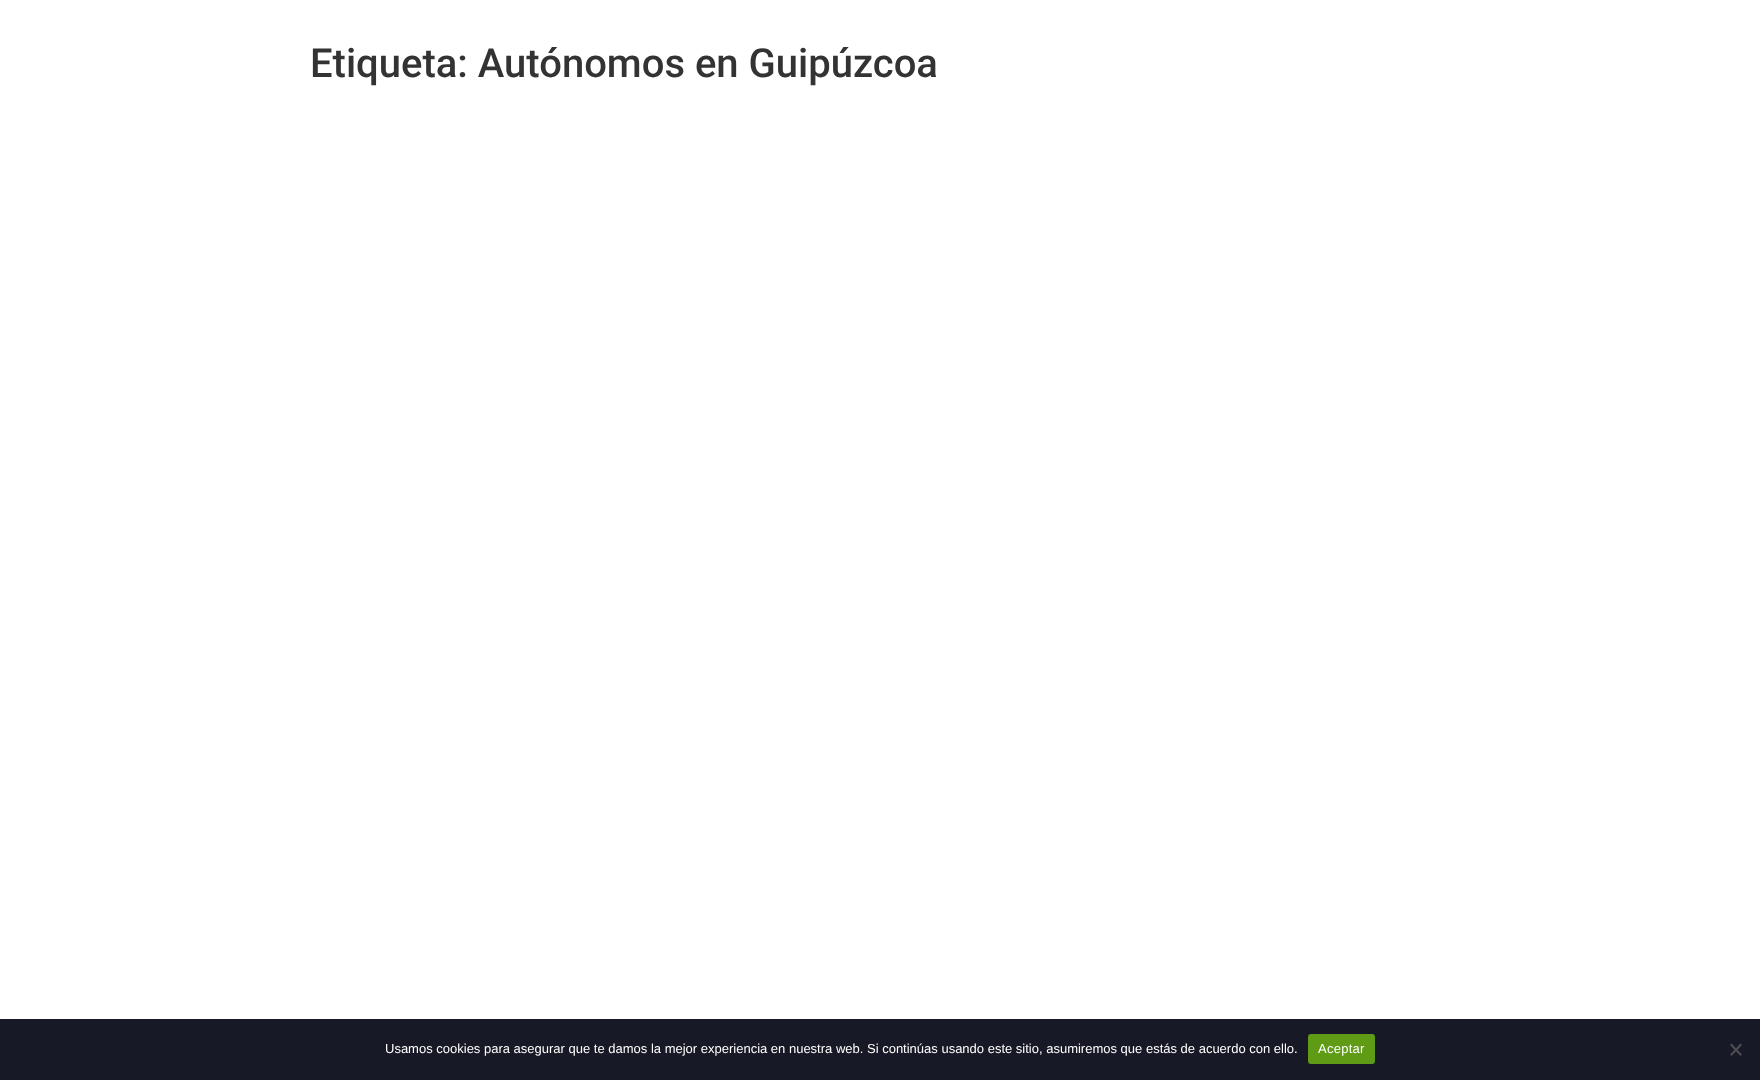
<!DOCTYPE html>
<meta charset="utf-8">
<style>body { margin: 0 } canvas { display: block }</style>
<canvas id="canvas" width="1760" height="1080"></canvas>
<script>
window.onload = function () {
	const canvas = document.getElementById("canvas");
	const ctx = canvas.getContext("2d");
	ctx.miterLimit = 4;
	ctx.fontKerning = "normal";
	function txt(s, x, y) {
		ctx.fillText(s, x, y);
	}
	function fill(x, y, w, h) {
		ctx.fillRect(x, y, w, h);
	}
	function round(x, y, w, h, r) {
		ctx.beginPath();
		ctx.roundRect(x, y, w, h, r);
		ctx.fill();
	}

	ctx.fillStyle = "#FFFFFF";
	fill(0, 0, 1760, 1080);
	ctx.fillStyle = "#181926";
	fill(0, 1019, 1760, 61);
	ctx.fillStyle = "#5F9B14";
	round(1308, 1034, 67, 30, 3);
	ctx.fillStyle = "#4C4D53";
	ctx.beginPath();
	ctx.moveTo(1740.5, 1043.5);
	ctx.lineTo(1742, 1045);
	ctx.lineTo(1731.5, 1056);
	ctx.lineTo(1730, 1054.5);
	ctx.closePath();
	ctx.fill();
	ctx.beginPath();
	ctx.moveTo(1730, 1045);
	ctx.lineTo(1731.5, 1043.5);
	ctx.lineTo(1742, 1054.5);
	ctx.lineTo(1740.5, 1056);
	ctx.closePath();
	ctx.fill();
	ctx.font = "500 40px Roboto";
	ctx.fillStyle = "#333333";
	txt("Etiqueta: Autónomos en Guipúzcoa", 310, 77);
	ctx.font = "13px Liberation Sans";
	ctx.fillStyle = "#FFFFFF";
	txt("Usamos cookies para asegurar que te damos la mejor experiencia en nuestra web. Si continúas usando este sitio, asumiremos que estás de acuerdo con ello.", 385, 1053);
	ctx.letterSpacing = "0.25px";
	txt("Aceptar", 1318, 1053);
};
</script>
